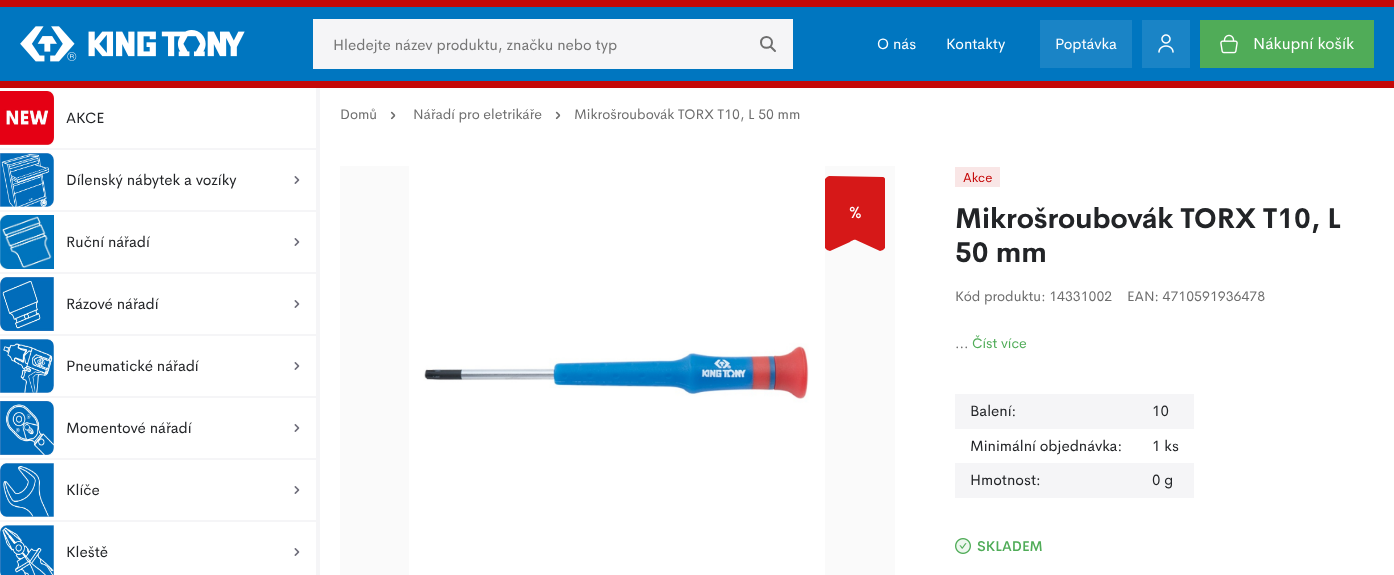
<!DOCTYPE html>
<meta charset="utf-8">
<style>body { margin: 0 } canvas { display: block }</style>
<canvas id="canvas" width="1394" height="575"></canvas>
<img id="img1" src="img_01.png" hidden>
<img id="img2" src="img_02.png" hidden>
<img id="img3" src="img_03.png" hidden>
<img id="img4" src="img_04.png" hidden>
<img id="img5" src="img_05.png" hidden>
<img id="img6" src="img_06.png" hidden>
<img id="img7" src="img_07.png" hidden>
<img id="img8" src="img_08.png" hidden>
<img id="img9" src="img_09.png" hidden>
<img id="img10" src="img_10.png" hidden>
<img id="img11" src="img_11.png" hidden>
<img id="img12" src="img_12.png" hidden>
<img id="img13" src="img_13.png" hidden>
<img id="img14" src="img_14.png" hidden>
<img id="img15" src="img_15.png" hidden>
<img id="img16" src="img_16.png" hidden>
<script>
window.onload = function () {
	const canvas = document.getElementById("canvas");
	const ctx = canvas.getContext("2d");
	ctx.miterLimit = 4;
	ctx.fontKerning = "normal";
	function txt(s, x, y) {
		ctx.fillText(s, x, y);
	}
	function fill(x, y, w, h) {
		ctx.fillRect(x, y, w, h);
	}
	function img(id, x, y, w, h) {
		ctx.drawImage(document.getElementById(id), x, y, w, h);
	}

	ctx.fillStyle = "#FFFFFF";
	fill(0, 0, 1394, 575);
	ctx.fillStyle = "#0076C0";
	fill(0, 7, 1394, 74);
	ctx.fillStyle = "#C40808";
	fill(0, 0, 1394, 7);
	fill(0, 81, 1394, 7);
	img("img1", 20, 26, 225, 36);
	ctx.fillStyle = "#F5F5F7";
	fill(313, 19, 480, 50);
	ctx.beginPath();
	ctx.moveTo(775, 51);
	ctx.lineTo(770.5, 46.5);
	ctx.closePath();
	ctx.moveTo(772, 42.5);
	ctx.bezierCurveTo(772, 49.5, 761, 49.5, 761, 42.5);
	ctx.bezierCurveTo(761, 35, 772, 35.5, 772, 42.5);
	ctx.closePath();
	ctx.strokeStyle = "#6F6F6F";
	ctx.lineWidth = 2;
	ctx.lineCap = "round";
	ctx.lineJoin = "round";
	ctx.stroke();
	ctx.fillStyle = "#1A84C6";
	fill(1040, 20, 92, 48);
	fill(1142, 20, 48, 48);
	img("img2", 1158, 34, 16, 19);
	ctx.fillStyle = "#50AC58";
	fill(1200, 20, 174, 48);
	img("img3", 1220, 34, 18, 20);
	ctx.fillStyle = "#F5F5F7";
	fill(0, 88, 320, 487);
	ctx.fillStyle = "#FFFFFF";
	fill(0, 88, 316, 60);
	img("img4", 0, 91, 54, 54);
	fill(0, 150, 316, 60);
	img("img5", 0, 153, 54, 54);
	img("img6", 294, 176, 6, 8);
	fill(0, 212, 316, 60);
	img("img7", 0, 215, 54, 54);
	img("img6", 294, 238, 6, 8);
	fill(0, 274, 316, 60);
	img("img8", 0, 277, 54, 54);
	img("img6", 294, 300, 6, 8);
	fill(0, 336, 316, 60);
	img("img9", 0, 339, 54, 54);
	img("img6", 294, 362, 6, 8);
	fill(0, 398, 316, 60);
	img("img10", 0, 401, 54, 54);
	img("img6", 294, 424, 6, 8);
	fill(0, 460, 316, 60);
	img("img11", 0, 463, 54, 54);
	img("img6", 294, 486, 6, 8);
	fill(0, 522, 316, 53);
	img("img12", 0, 525, 54, 50);
	img("img6", 294, 548, 6, 8);
	img("img13", 390, 111, 6, 9);
	img("img14", 555, 111, 6, 9);
	ctx.fillStyle = "#FAFAFA";
	fill(340, 166, 555, 409);
	img("img15", 409, 166, 416, 409);
	ctx.fillStyle = "#D61818";
	ctx.beginPath();
	ctx.moveTo(856, 240);
	ctx.lineTo(880, 251);
	ctx.lineTo(883, 250);
	ctx.lineTo(885, 248);
	ctx.lineTo(885, 179);
	ctx.bezierCurveTo(885, 178, 884, 177, 883, 177);
	ctx.lineTo(829, 176);
	ctx.lineTo(827, 177);
	ctx.lineTo(825, 179);
	ctx.lineTo(825, 248);
	ctx.lineTo(827, 250);
	ctx.lineTo(830, 251);
	ctx.lineTo(850, 242);
	ctx.bezierCurveTo(850, 242, 854, 239, 856, 240);
	ctx.closePath();
	ctx.fill();
	ctx.fillStyle = "#F9E6E6";
	fill(955, 167, 45, 20);
	ctx.fillStyle = "#F5F5F7";
	fill(955, 394, 239, 35);
	fill(955, 463, 239, 35);
	img("img16", 955, 538, 16, 16);
	ctx.font = "15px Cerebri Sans";
	ctx.fillStyle = "#757575";
	txt("Hledejte název produktu, značku nebo typ", 333, 50);
	ctx.fillStyle = "#FFFFFF";
	txt("O nás", 877, 49);
	txt("Kontakty", 946, 49);
	txt("Poptávka", 1055, 49);
	ctx.font = "16px Cerebri Sans";
	txt("Nákupní košík", 1253, 49);
	ctx.font = "15px Cerebri Sans";
	ctx.fillStyle = "#222427";
	txt("AKCE", 66, 123);
	txt("Dílenský nábytek a vozíky", 66, 185);
	txt("Ruční nářadí", 66, 247);
	txt("Rázové nářadí", 66, 309);
	txt("Pneumatické nářadí", 66, 371);
	txt("Momentové nářadí", 66, 433);
	txt("Klíče", 66, 495);
	txt("Kleště", 66, 557);
	ctx.font = "14px Cerebri Sans";
	ctx.fillStyle = "#6E6E6E";
	txt("Domů", 340, 119);
	txt("Nářadí pro eletrikáře", 413, 119);
	txt("Mikrošroubovák TORX T10, L 50 mm", 574, 119);
	ctx.font = "500 16px Cerebri Sans";
	ctx.fillStyle = "#FFFFFF";
	txt("%", 849, 218);
	ctx.font = "13px Cerebri Sans";
	ctx.fillStyle = "#C40808";
	txt("Akce", 963, 182);
	ctx.font = "bold 28px Cerebri Sans";
	ctx.fillStyle = "#222427";
	txt("Mikrošroubovák TORX T10, L", 955, 228);
	txt("50 mm", 955, 262);
	ctx.font = "14px Cerebri Sans";
	ctx.fillStyle = "#6E6E6E";
	txt("Kód produktu: 14331002", 955, 301);
	txt("EAN: 4710591936478", 1127, 301);
	txt("...", 955, 348);
	ctx.fillStyle = "#50AC58";
	txt("Číst více", 972, 348);
	ctx.font = "15px Cerebri Sans";
	ctx.fillStyle = "#222427";
	txt("Balení:", 970, 416);
	txt("10", 1152, 416);
	txt("Minimální objednávka:", 970, 451);
	txt("1 ks", 1152, 451);
	txt("Hmotnost:", 970, 485);
	txt("0 g", 1152, 485);
	ctx.font = "500 14px Cerebri Sans";
	ctx.fillStyle = "#50AC58";
	txt("SKLADEM", 977, 551);
};
</script>
